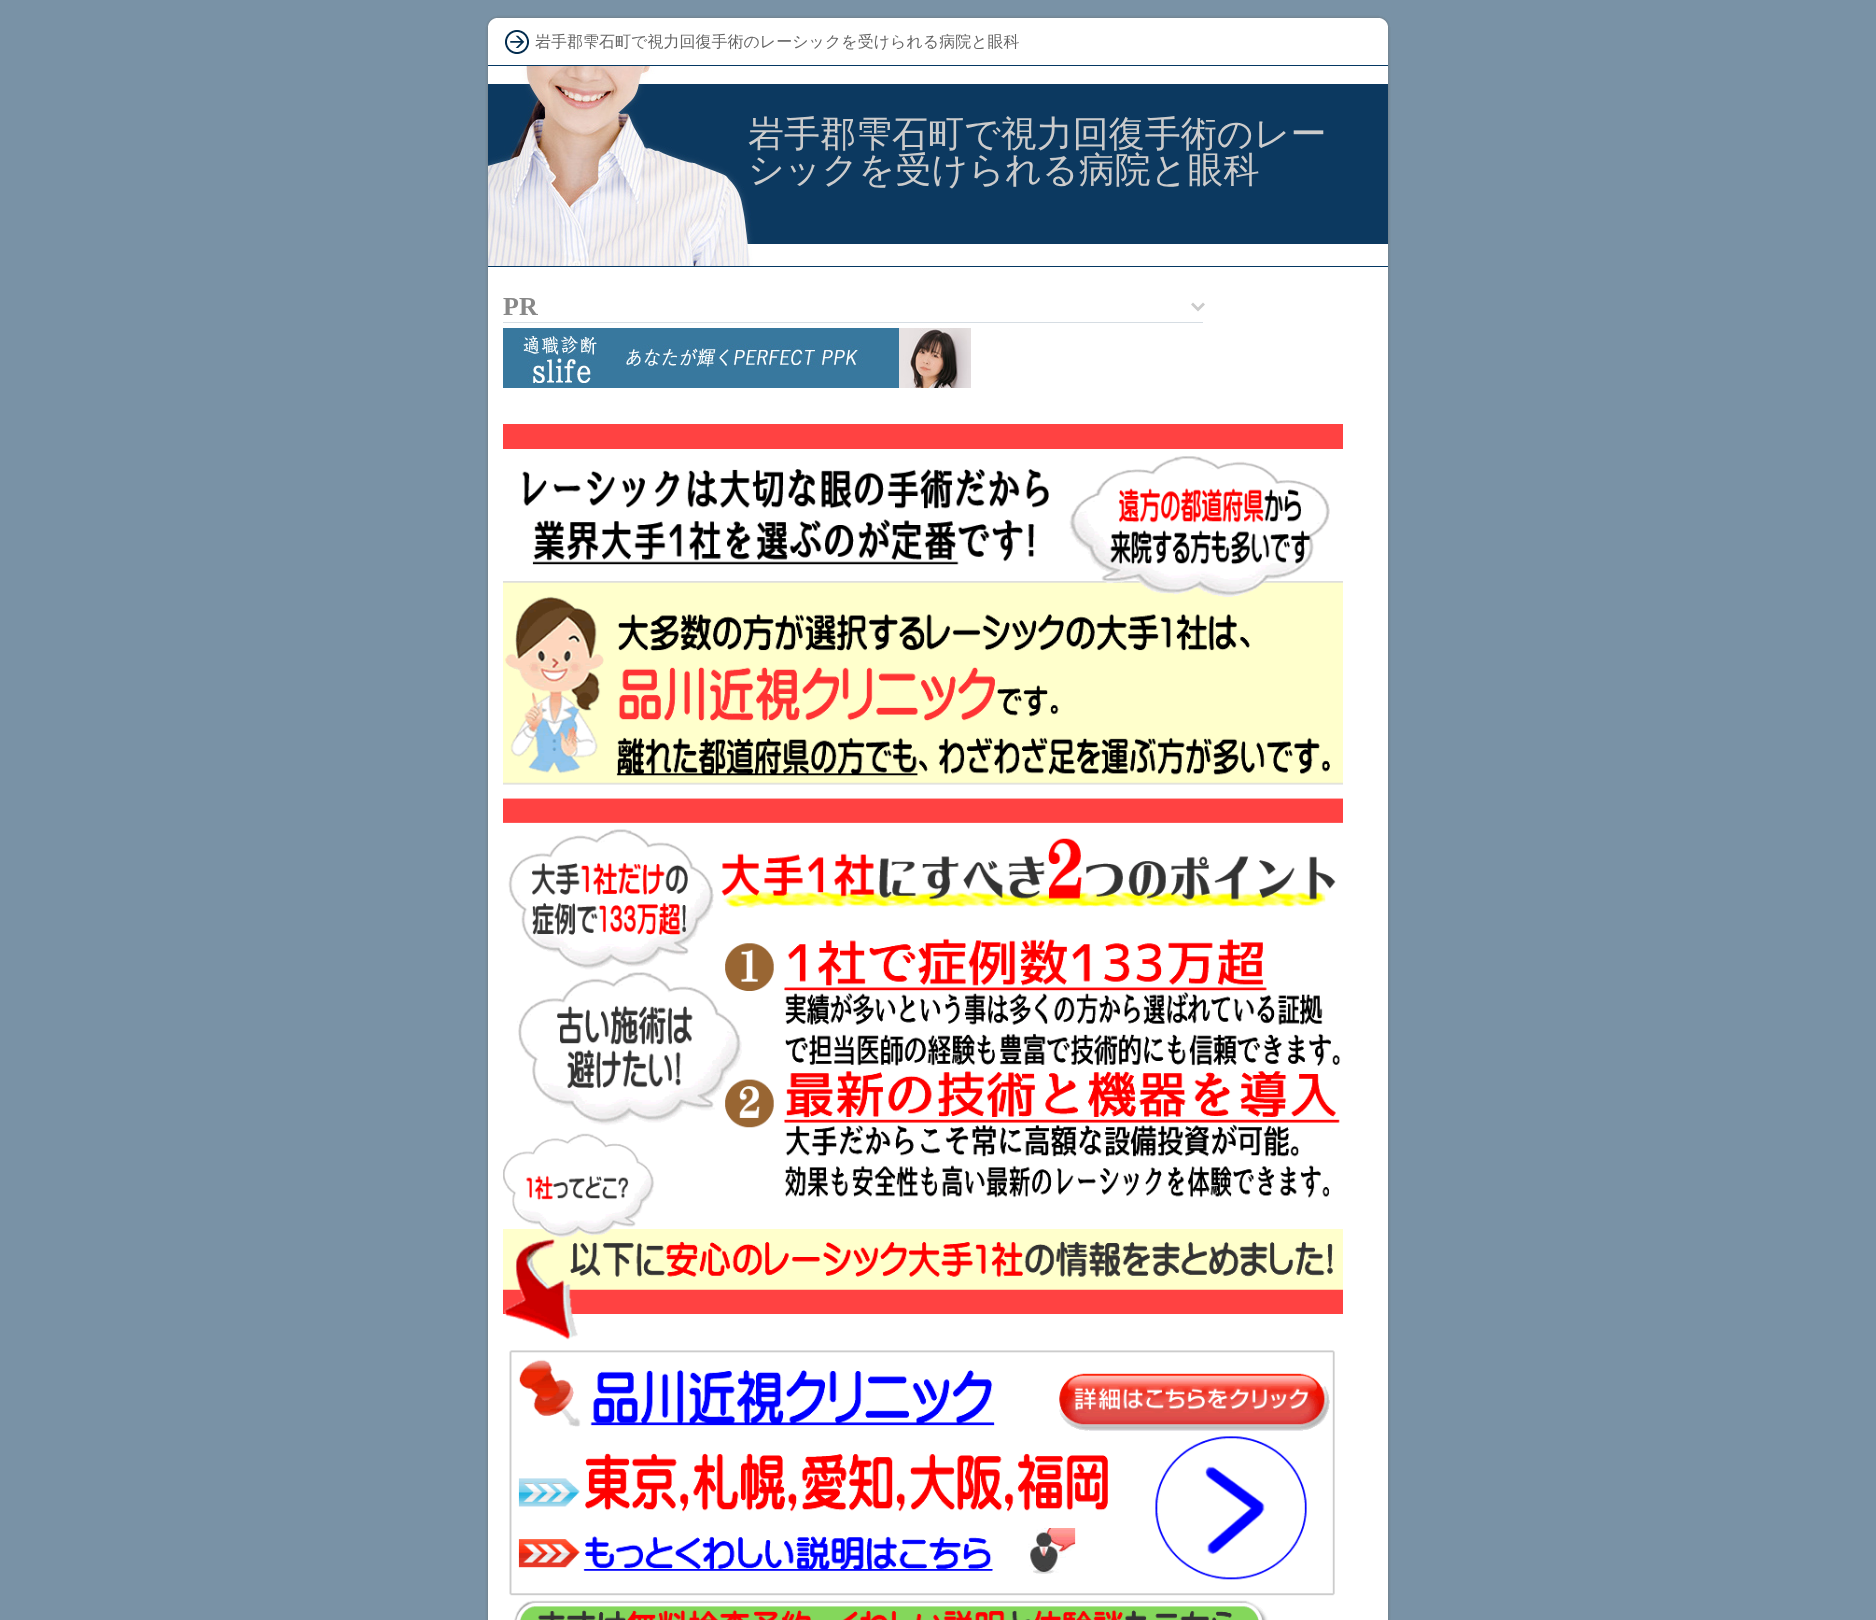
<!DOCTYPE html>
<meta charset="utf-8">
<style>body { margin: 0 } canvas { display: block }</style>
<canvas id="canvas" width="1876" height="1620"></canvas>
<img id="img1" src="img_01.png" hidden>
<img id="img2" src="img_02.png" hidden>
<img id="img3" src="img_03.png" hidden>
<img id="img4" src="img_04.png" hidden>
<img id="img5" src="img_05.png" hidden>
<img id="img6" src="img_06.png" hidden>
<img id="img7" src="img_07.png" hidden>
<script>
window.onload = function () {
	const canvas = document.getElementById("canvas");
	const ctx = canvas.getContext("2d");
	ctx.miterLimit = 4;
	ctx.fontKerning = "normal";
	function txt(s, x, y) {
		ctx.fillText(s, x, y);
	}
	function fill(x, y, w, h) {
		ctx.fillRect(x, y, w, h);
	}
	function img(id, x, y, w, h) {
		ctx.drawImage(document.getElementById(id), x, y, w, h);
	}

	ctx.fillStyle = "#7992A6";
	fill(0, 0, 1876, 1620);
	img("img1", 485, 15, 906, 50);
	img("img2", 505, 30, 24, 24);
	img("img3", 485, 65, 906, 1555);
	img("img4", 488, 66, 900, 200);
	ctx.fillStyle = "#043863";
	fill(488, 65, 900, 1);
	fill(488, 266, 900, 1);
	ctx.fillStyle = "#D6DDE3";
	fill(503, 322, 700, 1);
	ctx.fillStyle = "#CBCBCB";
	ctx.beginPath();
	ctx.moveTo(1205, 304.5);
	ctx.lineTo(1198, 311.5);
	ctx.lineTo(1198, 307.5);
	ctx.lineTo(1203, 302.5);
	ctx.closePath();
	ctx.moveTo(1198, 311.5);
	ctx.lineTo(1191, 304.5);
	ctx.lineTo(1193, 302.5);
	ctx.lineTo(1198, 307.5);
	ctx.closePath();
	ctx.fill();
	img("img5", 503, 328, 468, 60);
	ctx.fillStyle = "#FF4242";
	fill(503, 424, 840, 25);
	img("img6", 503, 456, 840, 884);
	img("img7", 509, 1350, 826, 270);
	ctx.font = "500 16px WenQuanYi Zen Hei";
	ctx.fillStyle = "#666666";
	txt("岩手郡雫石町で視力回復手術のレーシックを受けられる病院と眼科", 535, 47);
	ctx.font = "500 36px WenQuanYi Zen Hei";
	ctx.fillStyle = "#CCCCCC";
	txt("岩手郡雫石町で視力回復手術のレー", 748, 146);
	txt("シックを受けられる病院と眼科", 748, 182);
	ctx.font = "bold 26px Liberation Serif";
	ctx.fillStyle = "#888888";
	txt("PR", 503, 315);
};
</script>
